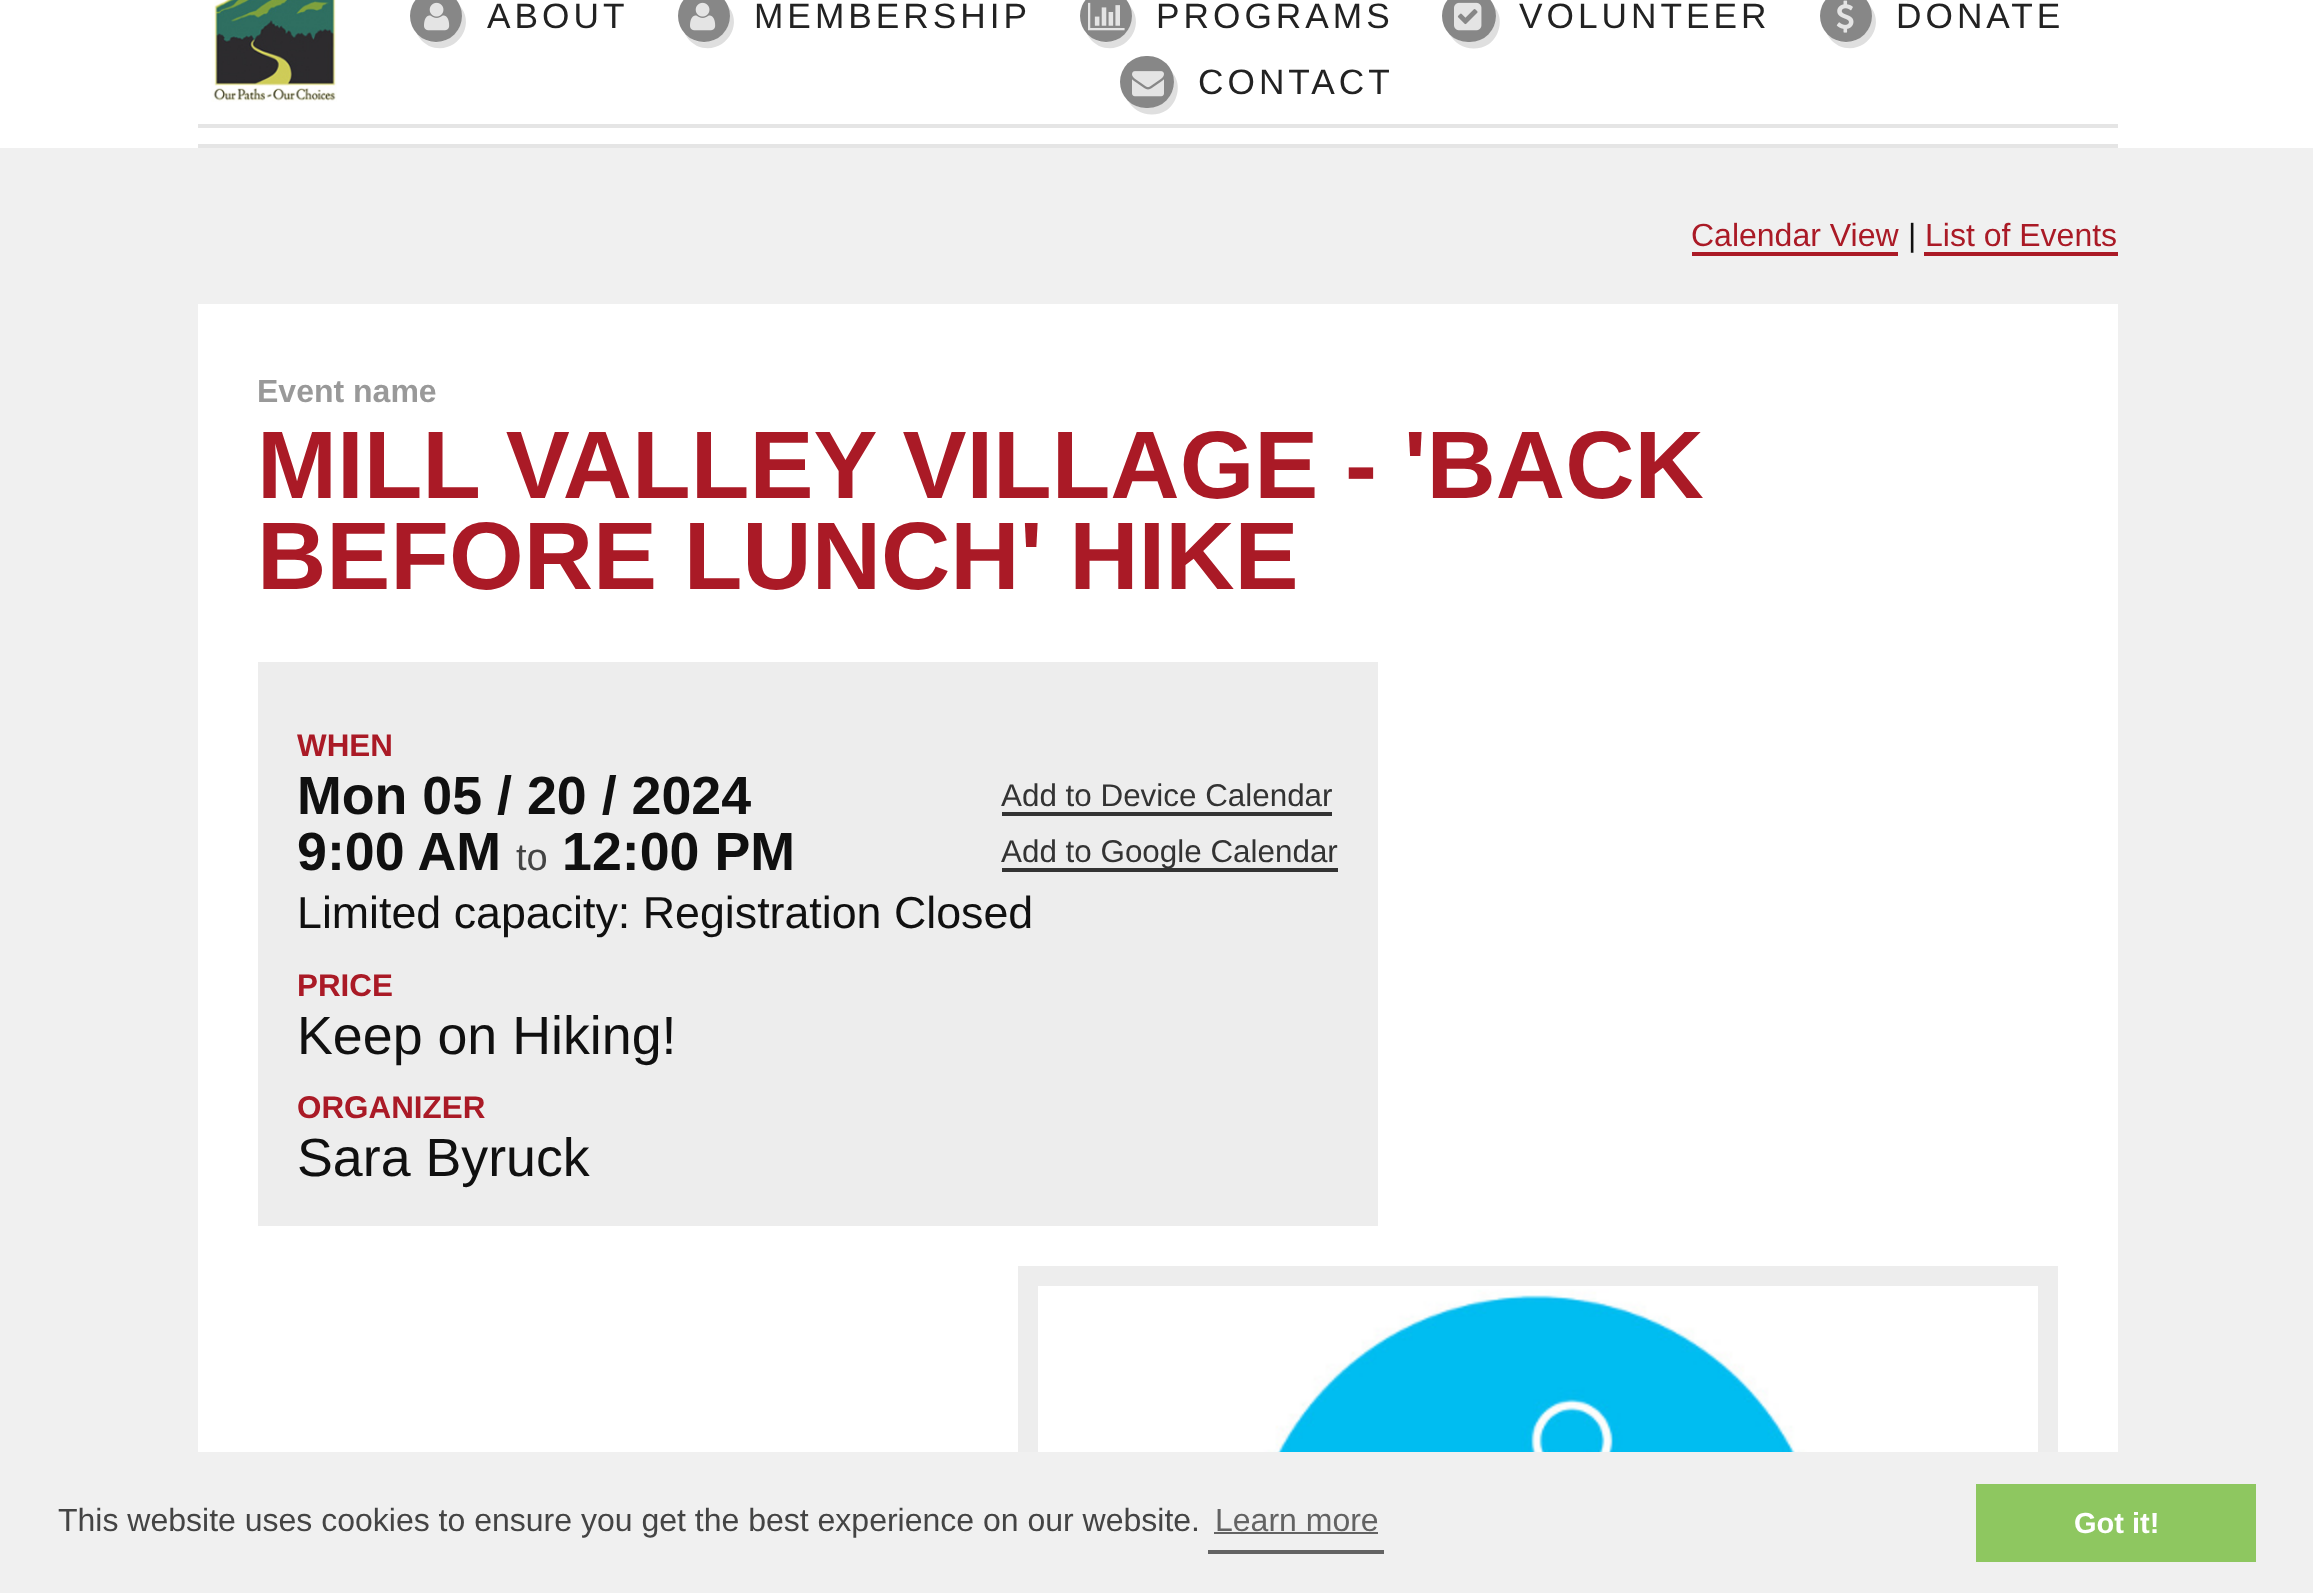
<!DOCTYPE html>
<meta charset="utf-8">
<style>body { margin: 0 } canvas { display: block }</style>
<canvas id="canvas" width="2313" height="1593"></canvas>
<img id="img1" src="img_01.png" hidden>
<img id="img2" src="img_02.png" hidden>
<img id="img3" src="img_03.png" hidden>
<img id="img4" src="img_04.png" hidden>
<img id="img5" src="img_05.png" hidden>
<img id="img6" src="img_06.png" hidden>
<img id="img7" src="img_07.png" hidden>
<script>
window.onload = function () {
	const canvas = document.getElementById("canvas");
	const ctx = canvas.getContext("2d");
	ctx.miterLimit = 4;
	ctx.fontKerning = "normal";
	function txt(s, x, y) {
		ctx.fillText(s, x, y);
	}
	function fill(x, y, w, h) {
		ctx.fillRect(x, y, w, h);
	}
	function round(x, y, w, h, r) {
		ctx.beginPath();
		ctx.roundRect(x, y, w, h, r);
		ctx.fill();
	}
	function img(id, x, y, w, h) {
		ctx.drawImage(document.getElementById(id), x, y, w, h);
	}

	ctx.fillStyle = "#F0F0F0";
	fill(0, 0, 2313, 1593);
	ctx.fillStyle = "#FFFFFF";
	fill(0, 0, 2313, 148);
	ctx.fillStyle = "#E5E5E5";
	fill(198, 124, 1920, 4);
	fill(198, 144, 1920, 4);
	img("img1", 211, 0, 126, 102);
	ctx.fillStyle = "#DFDFDF";
	ctx.beginPath();
	ctx.moveTo(417, 33);
	ctx.bezierCurveTo(419, 39, 424, 43, 429, 46);
	ctx.bezierCurveTo(455, 57, 478, 25, 459, 5);
	ctx.bezierCurveTo(472, 32, 436, 56, 417, 33);
	ctx.closePath();
	ctx.fill();
	ctx.fillStyle = "#878787";
	ctx.beginPath();
	ctx.arc(436, 16, 26, 0, Math.PI * 2);
	ctx.fill();
	img("img2", 424, 2, 26, 29);
	ctx.fillStyle = "#DFDFDF";
	ctx.beginPath();
	ctx.moveTo(685, 33);
	ctx.bezierCurveTo(687, 39, 692, 43, 697, 46);
	ctx.bezierCurveTo(723, 57, 746, 25, 727, 5);
	ctx.bezierCurveTo(740, 32, 704, 56, 685, 33);
	ctx.closePath();
	ctx.fill();
	ctx.fillStyle = "#878787";
	ctx.beginPath();
	ctx.arc(704, 16, 26, 0, Math.PI * 2);
	ctx.fill();
	img("img2", 690, 2, 26, 29);
	ctx.fillStyle = "#DFDFDF";
	ctx.beginPath();
	ctx.moveTo(1087, 33);
	ctx.bezierCurveTo(1089, 39, 1094, 43, 1099, 46);
	ctx.bezierCurveTo(1125, 57, 1148, 25, 1129, 5);
	ctx.bezierCurveTo(1142, 32, 1106, 56, 1087, 33);
	ctx.closePath();
	ctx.fill();
	ctx.fillStyle = "#878787";
	ctx.beginPath();
	ctx.arc(1106, 16, 26, 0, Math.PI * 2);
	ctx.fill();
	img("img3", 1088, 2, 37, 29);
	ctx.fillStyle = "#DFDFDF";
	ctx.beginPath();
	ctx.moveTo(1449, 33);
	ctx.bezierCurveTo(1456, 48, 1475, 53, 1489, 44);
	ctx.bezierCurveTo(1501, 35, 1504, 16, 1493, 5);
	ctx.bezierCurveTo(1507, 33, 1468, 55, 1449, 33);
	ctx.closePath();
	ctx.fill();
	ctx.fillStyle = "#878787";
	round(1442, -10, 54, 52, 26);
	img("img4", 1454, 2, 28, 29);
	ctx.fillStyle = "#DFDFDF";
	ctx.beginPath();
	ctx.moveTo(1827, 33);
	ctx.bezierCurveTo(1829, 39, 1834, 43, 1839, 46);
	ctx.bezierCurveTo(1865, 57, 1888, 25, 1869, 5);
	ctx.bezierCurveTo(1882, 32, 1846, 56, 1827, 33);
	ctx.closePath();
	ctx.fill();
	ctx.fillStyle = "#878787";
	ctx.beginPath();
	ctx.arc(1846, 16, 26, 0, Math.PI * 2);
	ctx.fill();
	img("img5", 1836, 0, 18, 33);
	ctx.fillStyle = "#DFDFDF";
	ctx.beginPath();
	ctx.moveTo(1127, 99);
	ctx.bezierCurveTo(1134, 114, 1153, 119, 1167, 110);
	ctx.bezierCurveTo(1179, 101, 1182, 82, 1171, 71);
	ctx.bezierCurveTo(1185, 99, 1146, 121, 1127, 99);
	ctx.closePath();
	ctx.fill();
	ctx.fillStyle = "#878787";
	round(1120, 56, 54, 52, 26);
	img("img6", 1132, 71, 32, 26);
	ctx.fillStyle = "#AA1A26";
	fill(1692, 252, 206, 4);
	fill(1924, 252, 194, 4);
	ctx.fillStyle = "#FFFFFF";
	fill(198, 304, 1920, 1148);
	ctx.fillStyle = "#EDEDED";
	fill(258, 662, 1120, 564);
	ctx.fillStyle = "#333333";
	fill(1002, 812, 330, 4);
	fill(1002, 868, 336, 4);
	ctx.fillStyle = "#EDEDED";
	fill(1018, 1266, 1040, 186);
	img("img7", 1038, 1286, 1000, 166);
	ctx.fillStyle = "#636363";
	fill(1208, 1550, 176, 4);
	fill(1214, 1532, 164, 2);
	ctx.fillStyle = "#8EC760";
	fill(1976, 1484, 280, 78);
	ctx.letterSpacing = "4px";
	ctx.font = "35.25px Liberation Sans";
	ctx.fillStyle = "#222222";
	txt("ABOUT", 487, 28);
	txt("MEMBERSHIP", 754, 28);
	txt("PROGRAMS", 1156, 28);
	txt("VOLUNTEER", 1519, 28);
	txt("DONATE", 1896, 28);
	txt("CONTACT", 1198, 94);
	ctx.letterSpacing = "0px";
	ctx.font = "32px Liberation Sans";
	ctx.fillStyle = "#AA1A26";
	txt("Calendar View", 1691, 246);
	ctx.fillStyle = "#101010";
	txt("|", 1908, 246);
	ctx.fillStyle = "#AA1A26";
	txt("List of Events", 1925, 246);
	ctx.font = "bold 32px Liberation Sans";
	ctx.fillStyle = "#999999";
	txt("Event name", 257, 402);
	ctx.font = "bold 96px Liberation Sans";
	ctx.fillStyle = "#AA1A26";
	txt("MILL VALLEY VILLAGE - 'BACK", 257, 498);
	txt("BEFORE LUNCH' HIKE", 257, 589);
	ctx.font = "bold 31.4px Liberation Sans";
	txt("WHEN", 297, 756);
	ctx.font = "bold 53.75px Liberation Sans";
	ctx.fillStyle = "#101010";
	txt("Mon 05 / 20 / 2024", 297, 814);
	txt("9:00 AM", 297, 870);
	ctx.font = "38px Liberation Sans";
	ctx.fillStyle = "#444444";
	txt("to", 516, 870);
	ctx.font = "bold 53.75px Liberation Sans";
	ctx.fillStyle = "#101010";
	txt("12:00 PM", 562, 870);
	ctx.font = "31.4px Liberation Sans";
	ctx.fillStyle = "#333333";
	txt("Add to Device Calendar", 1001, 806);
	txt("Add to Google Calendar", 1001, 862);
	ctx.font = "44.75px Liberation Sans";
	ctx.fillStyle = "#101010";
	txt("Limited capacity: Registration Closed", 297, 928);
	ctx.font = "bold 31.4px Liberation Sans";
	ctx.fillStyle = "#AA1A26";
	txt("PRICE", 297, 996);
	ctx.font = "53.75px Liberation Sans";
	ctx.fillStyle = "#101010";
	txt("Keep on Hiking!", 297, 1054);
	ctx.font = "bold 31.4px Liberation Sans";
	ctx.fillStyle = "#AA1A26";
	txt("ORGANIZER", 297, 1118);
	ctx.font = "53.75px Liberation Sans";
	ctx.fillStyle = "#101010";
	txt("Sara Byruck", 297, 1176);
	ctx.font = "32px Liberation Sans";
	ctx.fillStyle = "#444444";
	txt("This website uses cookies to ensure you get the best experience on our website.", 58, 1531);
	ctx.fillStyle = "#636363";
	txt("Learn more", 1215, 1531);
	ctx.font = "bold 29px Liberation Sans";
	ctx.fillStyle = "#FFFFFF";
	txt("Got it!", 2074, 1533);
};
</script>
